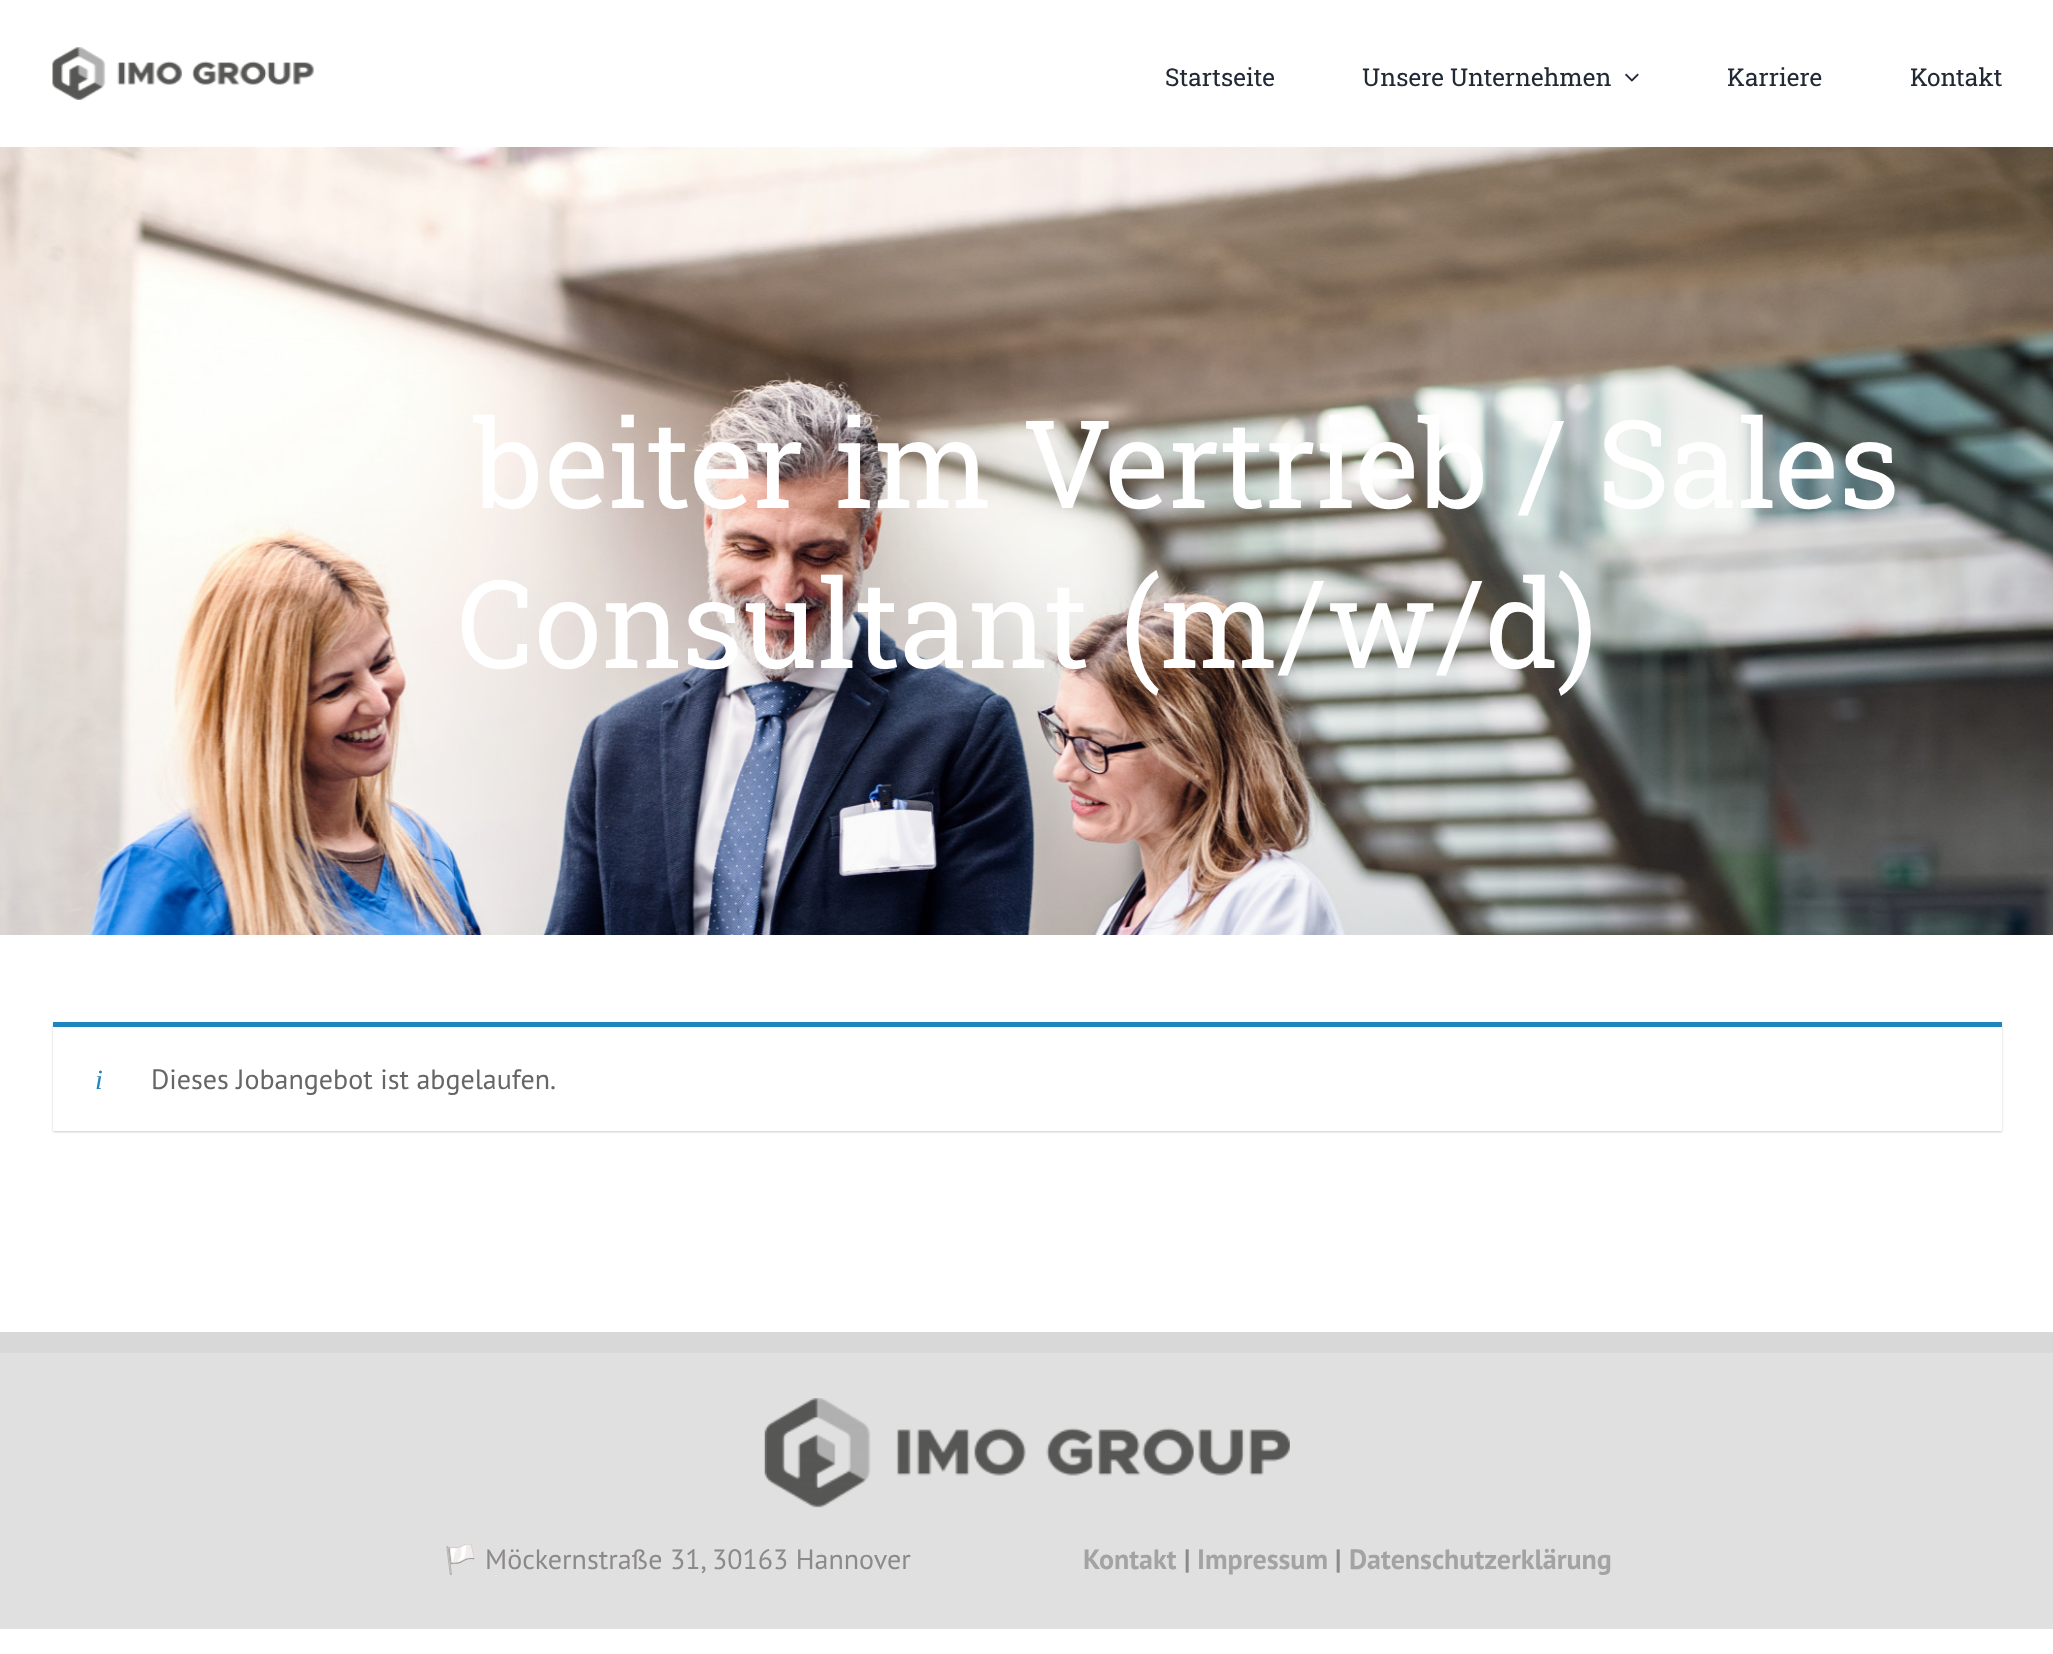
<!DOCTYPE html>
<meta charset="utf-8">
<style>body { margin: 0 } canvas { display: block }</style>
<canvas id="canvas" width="2053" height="1654"></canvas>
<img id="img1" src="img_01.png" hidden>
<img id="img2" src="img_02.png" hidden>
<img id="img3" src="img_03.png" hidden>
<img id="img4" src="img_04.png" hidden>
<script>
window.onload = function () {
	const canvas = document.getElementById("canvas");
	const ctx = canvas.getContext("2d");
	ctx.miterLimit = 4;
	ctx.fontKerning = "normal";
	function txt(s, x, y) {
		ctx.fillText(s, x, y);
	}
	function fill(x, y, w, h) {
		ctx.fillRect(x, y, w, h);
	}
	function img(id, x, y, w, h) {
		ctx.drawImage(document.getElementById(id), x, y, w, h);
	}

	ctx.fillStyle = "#FFFFFF";
	fill(0, 0, 2053, 1654);
	img("img1", 52, 47, 262, 53);
	img("img2", 1625, 73, 14, 9);
	img("img3", 0, 147, 2053, 788);
	ctx.fillStyle = "rgba(0, 0, 0, 0.2)";
	ctx.filter = "blur(1px)";
	ctx.beginPath();
	ctx.rect(53, 1024, 1949, 108);
	ctx.fill();
	ctx.filter = "none";
	ctx.fillStyle = "#FFFFFF";
	fill(53, 1027, 1949, 104);
	ctx.fillStyle = "#1E85BE";
	fill(53, 1022, 1949, 5);
	ctx.fillStyle = "#E0E0E0";
	fill(0, 1353, 2053, 276);
	ctx.fillStyle = "#D8D8D8";
	fill(0, 1332, 2053, 21);
	img("img4", 764, 1398, 526, 110);
	ctx.font = "24.5px Roboto Slab";
	ctx.fillStyle = "#212934";
	txt("Startseite", 1165, 86);
	txt("Unsere Unternehmen", 1362, 86);
	txt("Karriere", 1727, 86);
	txt("Kontakt", 1910, 86);
	ctx.font = "122.5px Roboto Slab";
	ctx.fillStyle = "#FFFFFF";
	txt("beiter im Vertrieb / Sales", 474, 508);
	txt("Consultant (m/w/d)", 457, 668);
	ctx.font = "italic 28px Liberation Serif";
	ctx.fillStyle = "#1E85BE";
	txt("i", 95, 1089);
	ctx.font = "28px PT Sans";
	ctx.fillStyle = "#666666";
	txt("Dieses Jobangebot ist abgelaufen.", 151, 1089);
	ctx.font = "28px Noto Color Emoji";
	ctx.fillStyle = "#8C8989";
	txt("🏳️", 443, 1569);
	ctx.font = "28px PT Sans";
	txt("Möckernstraße 31, 30163 Hannover", 485, 1569);
	ctx.font = "bold 28px PT Sans";
	ctx.fillStyle = "#A3A3A3";
	txt("Kontakt", 1083, 1569);
	ctx.fillStyle = "#8C8989";
	txt("|", 1184, 1569);
	ctx.fillStyle = "#A3A3A3";
	txt("Impressum", 1197, 1569);
	ctx.fillStyle = "#8C8989";
	txt("|", 1335, 1569);
	ctx.fillStyle = "#A3A3A3";
	txt("Datenschutzerklärung", 1349, 1569);
};
</script>
